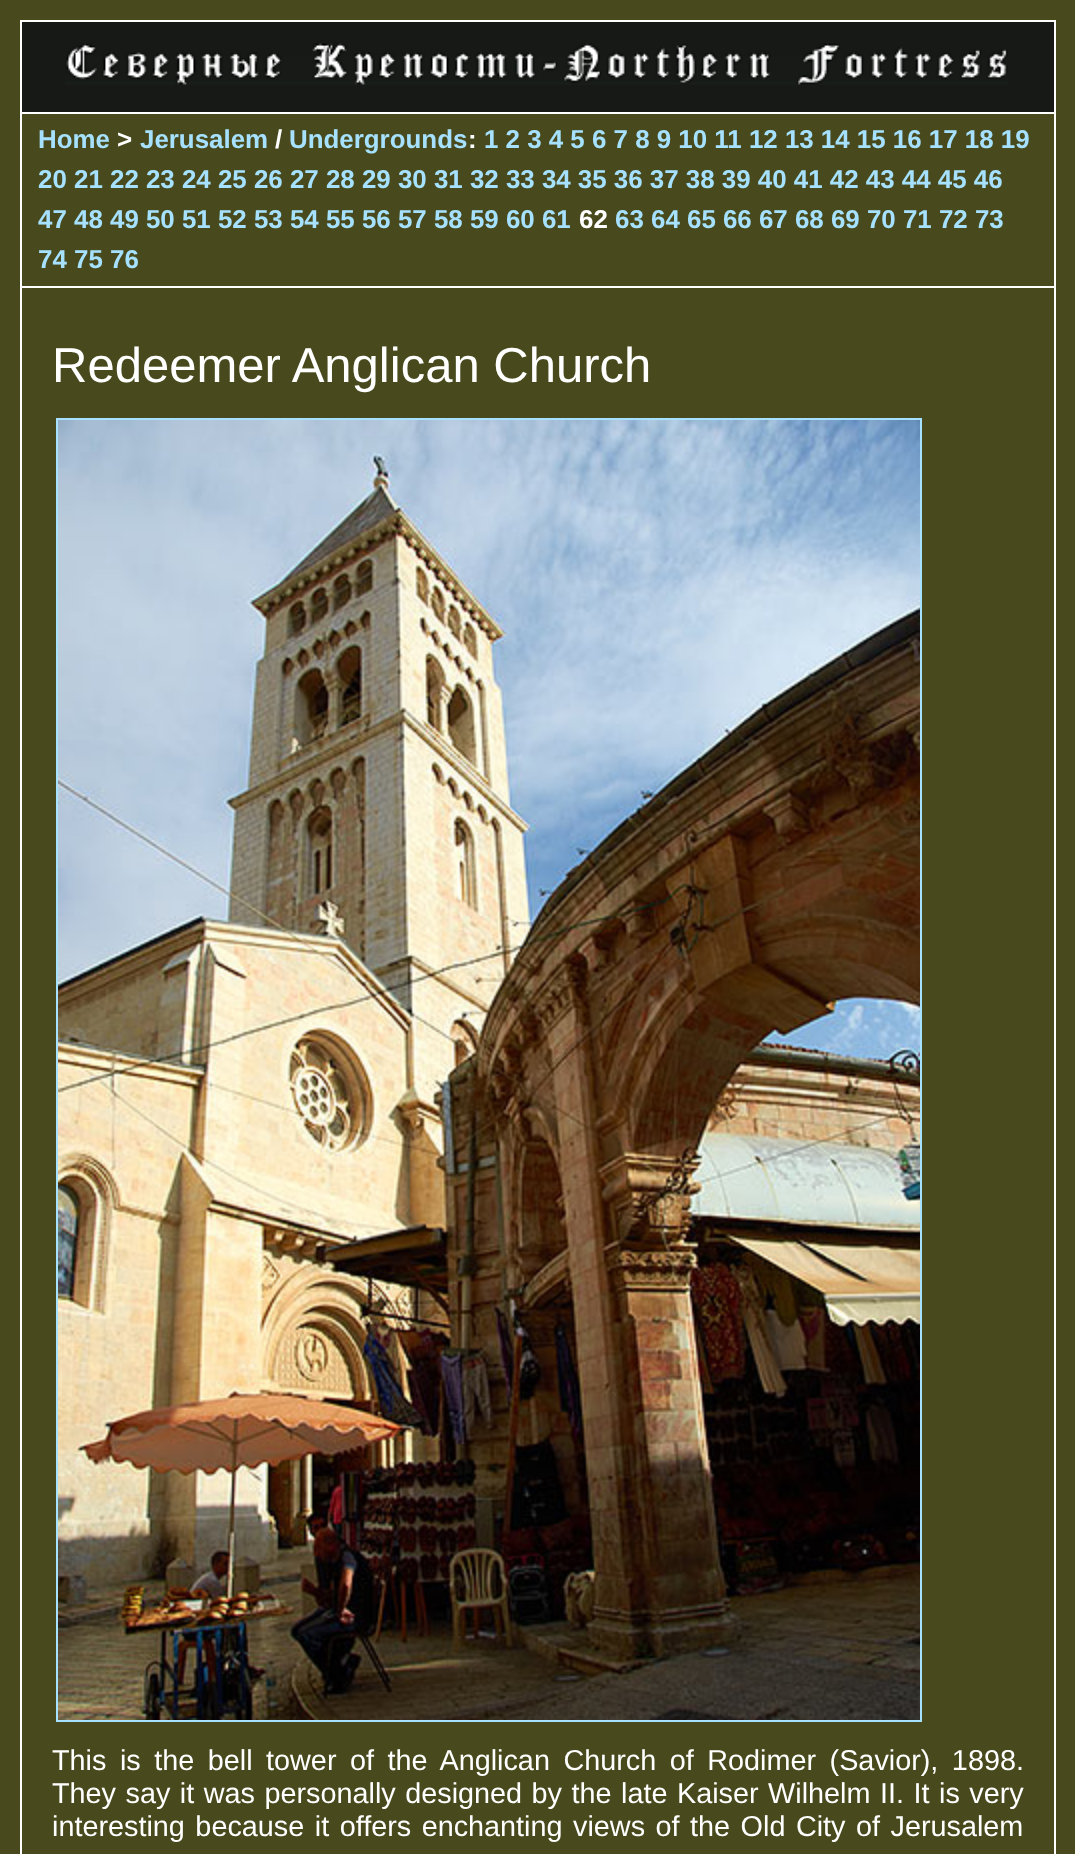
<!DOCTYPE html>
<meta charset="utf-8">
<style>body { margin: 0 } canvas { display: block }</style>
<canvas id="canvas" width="1075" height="1854"></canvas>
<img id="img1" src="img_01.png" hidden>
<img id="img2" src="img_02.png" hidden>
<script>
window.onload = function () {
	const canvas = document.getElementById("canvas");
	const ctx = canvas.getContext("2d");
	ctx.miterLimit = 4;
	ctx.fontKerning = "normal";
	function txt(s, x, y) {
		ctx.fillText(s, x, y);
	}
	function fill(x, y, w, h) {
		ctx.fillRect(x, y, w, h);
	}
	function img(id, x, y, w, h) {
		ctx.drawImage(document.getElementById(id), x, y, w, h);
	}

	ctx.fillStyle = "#484A1D";
	fill(0, 0, 1075, 1854);
	ctx.fillStyle = "#171917";
	fill(22, 22, 1032, 90);
	ctx.fillStyle = "#FFFFFF";
	fill(20, 20, 1036, 2);
	fill(1054, 20, 2, 92);
	fill(20, 20, 2, 92);
	img("img1", 65, 43, 943, 42);
	fill(20, 112, 1036, 2);
	fill(1054, 112, 2, 174);
	fill(20, 112, 2, 174);
	ctx.strokeStyle = "#FFFFFF";
	ctx.lineWidth = 2;
	ctx.strokeRect(21, 287, 1034, 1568);
	ctx.strokeStyle = "#A6E2FF";
	ctx.strokeRect(57, 419, 864, 1302);
	img("img2", 58, 420, 862, 1300);
	ctx.font = "bold 25.9px Liberation Sans";
	ctx.fillStyle = "#A6E2FF";
	txt("Home", 38, 148);
	ctx.fillStyle = "#FFFFFF";
	txt(">", 117, 148);
	ctx.fillStyle = "#A6E2FF";
	txt("Jerusalem", 140, 148);
	ctx.fillStyle = "#FFFFFF";
	txt("/", 275, 148);
	ctx.fillStyle = "#A6E2FF";
	txt("Undergrounds", 289, 148);
	ctx.fillStyle = "#FFFFFF";
	txt(":", 468, 148);
	ctx.fillStyle = "#A6E2FF";
	txt("1 2 3 4 5 6 7 8 9 10 11 12 13 14 15 16 17 18 19", 484, 148);
	txt("20 21 22 23 24 25 26 27 28 29 30 31 32 33 34 35 36 37 38 39 40 41 42 43 44 45 46", 38, 188);
	txt("47 48 49 50 51 52 53 54 55 56 57 58 59 60 61", 38, 228);
	ctx.fillStyle = "#FFFFFF";
	txt("62", 579, 228);
	ctx.fillStyle = "#A6E2FF";
	txt("63 64 65 66 67 68 69 70 71 72 73", 615, 228);
	txt("74 75 76", 38, 268);
	ctx.font = "49px Liberation Sans";
	ctx.fillStyle = "#FFFFFF";
	txt("Redeemer Anglican Church", 52, 382);
	ctx.wordSpacing = "5.5px";
	ctx.font = "28.8px Liberation Sans";
	txt("This is the bell tower of the Anglican Church of Rodimer (Savior), 1898.", 52, 1770);
	ctx.wordSpacing = "1.5px";
	txt("They say it was personally designed by the late Kaiser Wilhelm II. It is very", 52, 1803);
	ctx.wordSpacing = "2.5px";
	txt("interesting because it offers enchanting views of the Old City of Jerusalem", 52, 1836);
};
</script>
